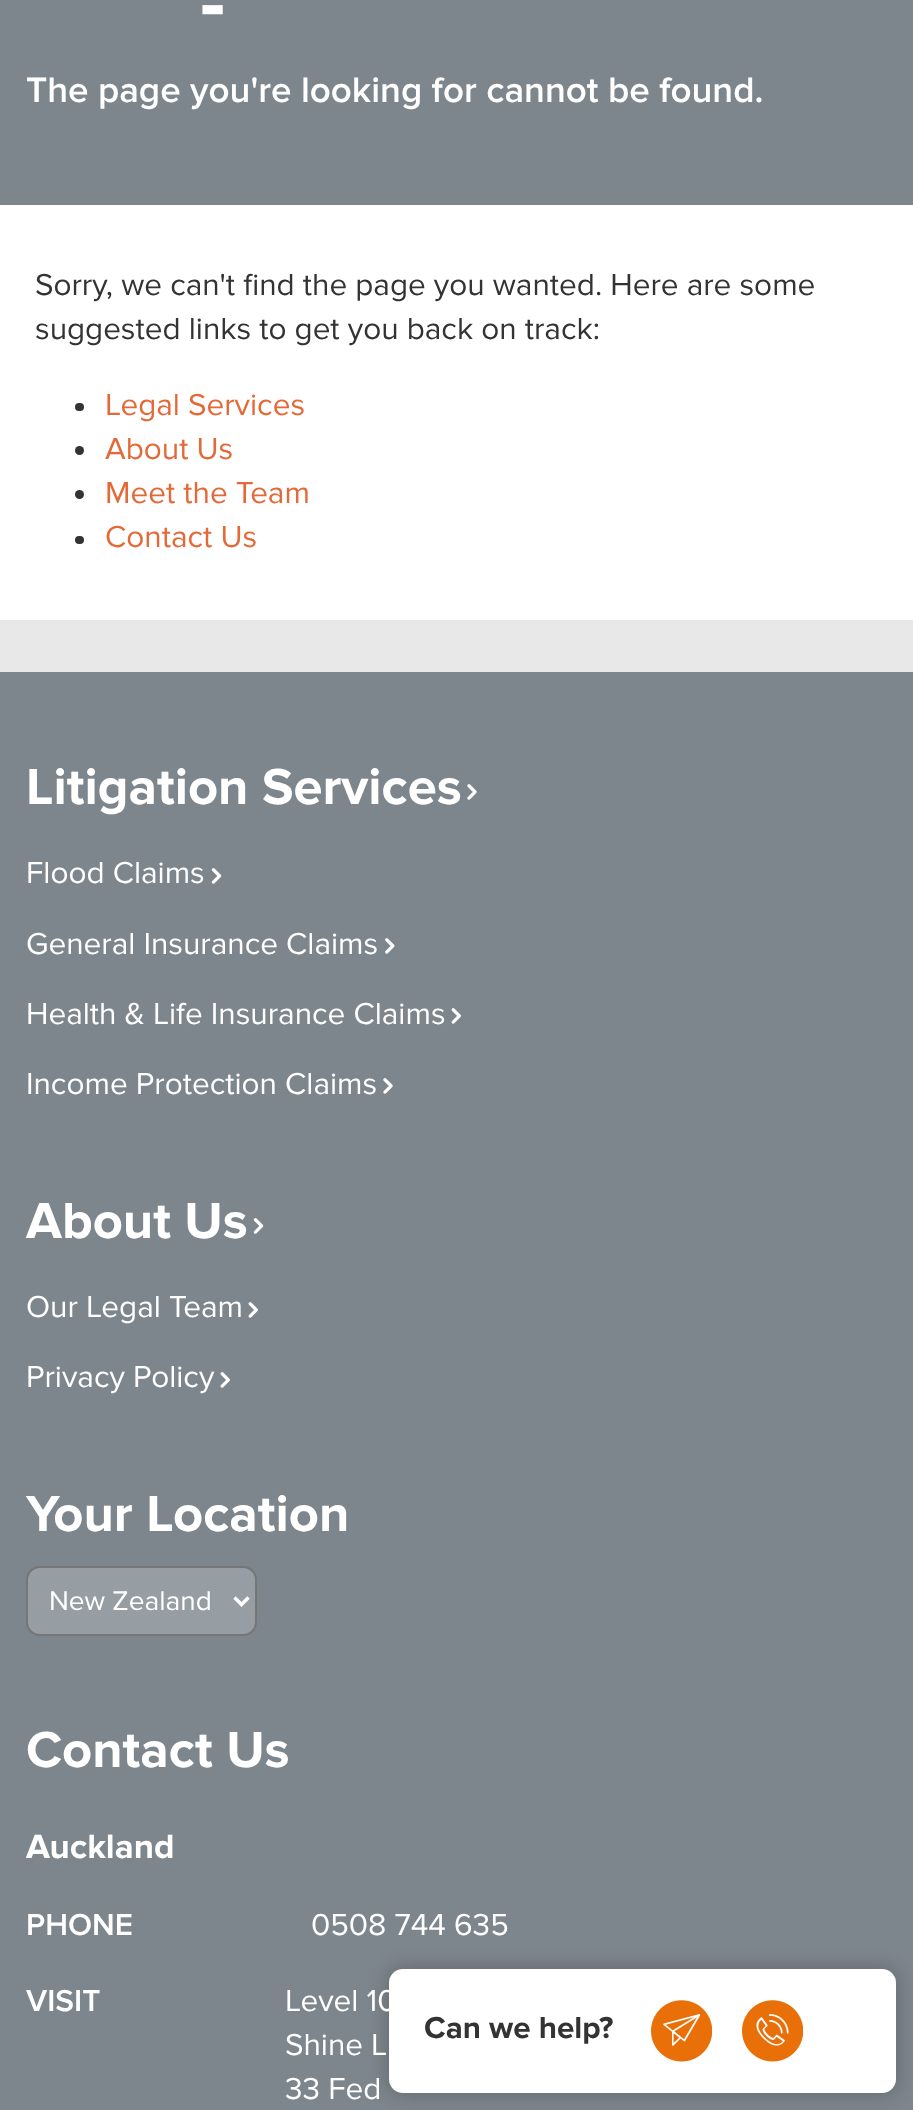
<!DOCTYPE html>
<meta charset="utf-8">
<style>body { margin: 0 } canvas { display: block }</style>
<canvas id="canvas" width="913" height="2110"></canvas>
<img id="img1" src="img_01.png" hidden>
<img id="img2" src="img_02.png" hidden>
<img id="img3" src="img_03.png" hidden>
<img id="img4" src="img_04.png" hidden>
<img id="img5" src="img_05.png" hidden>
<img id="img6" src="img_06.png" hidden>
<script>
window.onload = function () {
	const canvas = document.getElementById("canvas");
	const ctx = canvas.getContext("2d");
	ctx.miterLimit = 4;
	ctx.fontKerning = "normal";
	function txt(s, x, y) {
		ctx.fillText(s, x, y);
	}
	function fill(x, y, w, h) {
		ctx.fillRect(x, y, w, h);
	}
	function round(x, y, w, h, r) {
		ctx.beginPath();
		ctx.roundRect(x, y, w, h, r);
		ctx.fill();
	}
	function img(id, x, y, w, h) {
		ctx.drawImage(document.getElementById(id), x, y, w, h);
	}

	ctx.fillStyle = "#7D868C";
	fill(0, 0, 913, 2110);
	ctx.fillStyle = "#E8E8E8";
	fill(0, 620, 913, 52);
	ctx.fillStyle = "#FFFFFF";
	fill(0, 205, 913, 415);
	ctx.fillStyle = "#333333";
	round(75, 403, 9, 8, 4);
	ctx.beginPath();
	ctx.arc(79.5, 450.5, 4.5, 0, Math.PI * 2);
	ctx.fill();
	ctx.beginPath();
	ctx.arc(79.5, 494.5, 4.5, 0, Math.PI * 2);
	ctx.fill();
	round(75, 536, 9, 8, 4);
	img("img1", 467, 784, 10, 16);
	img("img2", 211, 868, 11, 16);
	img("img3", 385, 938, 10, 16);
	img("img4", 451, 1008, 10, 16);
	img("img1", 383, 1078, 10, 16);
	img("img2", 253, 1218, 11, 16);
	img("img4", 248, 1302, 10, 16);
	img("img4", 220, 1372, 10, 16);
	ctx.fillStyle = "#979EA3";
	ctx.beginPath();
	ctx.roundRect(27, 1567, 229, 68, 13);
	ctx.fill();
	ctx.strokeStyle = "#767676";
	ctx.lineWidth = 2;
	ctx.stroke();
	ctx.beginPath();
	ctx.moveTo(234.5, 1597.5);
	ctx.lineTo(241.5, 1604.5);
	ctx.lineTo(248.5, 1597.5);
	ctx.strokeStyle = "#FFFFFF";
	ctx.lineWidth = 3.5;
	ctx.stroke();
	ctx.fillStyle = "rgba(0, 0, 0, 0.2)";
	ctx.filter = "blur(9px)";
	ctx.beginPath();
	ctx.roundRect(387, 1967, 511, 128, 16);
	ctx.fill();
	ctx.filter = "none";
	ctx.fillStyle = "#FFFFFF";
	round(389, 1969, 507, 124, 14);
	img("img5", 651, 2000, 61, 62);
	img("img6", 742, 2000, 61, 62);
	ctx.font = "bold 84px Proxima Nova";
	txt("-", 200, 30);
	ctx.font = "600 36.75px Proxima Nova";
	txt("The page you're looking for cannot be found.", 26, 102);
	ctx.font = "31.5px Proxima Nova";
	ctx.fillStyle = "#333333";
	txt("Sorry, we can't find the page you wanted. Here are some", 35, 295);
	txt("suggested links to get you back on track:", 35, 339);
	ctx.fillStyle = "#E46937";
	txt("Legal Services", 105, 415);
	txt("About Us", 105, 459);
	txt("Meet the Team", 105, 503);
	txt("Contact Us", 105, 547);
	ctx.font = "bold 52.5px Proxima Nova";
	ctx.fillStyle = "#FFFFFF";
	txt("Litigation Services", 26, 804);
	ctx.font = "31.5px Proxima Nova";
	txt("Flood Claims", 26, 883);
	txt("General Insurance Claims", 26, 954);
	txt("Health & Life Insurance Claims", 26, 1024);
	txt("Income Protection Claims", 26, 1094);
	ctx.font = "bold 52.5px Proxima Nova";
	txt("About Us", 26, 1238);
	ctx.font = "31.5px Proxima Nova";
	txt("Our Legal Team", 26, 1317);
	txt("Privacy Policy", 26, 1387);
	ctx.font = "bold 52.5px Proxima Nova";
	txt("Your Location", 26, 1531);
	ctx.font = "28px Proxima Nova";
	txt("New Zealand", 49, 1610);
	ctx.font = "bold 52.5px Proxima Nova";
	txt("Contact Us", 26, 1767);
	ctx.font = "bold 35px Proxima Nova";
	txt("Auckland", 26, 1858);
	ctx.font = "600 31.5px Proxima Nova";
	txt("PHONE", 26, 1935);
	ctx.font = "31.5px Proxima Nova";
	txt("0508 744 635", 311, 1935);
	ctx.font = "600 31.5px Proxima Nova";
	txt("VISIT", 26, 2011);
	ctx.font = "31.5px Proxima Nova";
	txt("Level 10", 285, 2011);
	txt("Shine L", 285, 2055);
	txt("33 Fed", 285, 2099);
	ctx.font = "bold 31.5px Proxima Nova";
	ctx.fillStyle = "#333333";
	txt("Can we help?", 424, 2038);
};
</script>
